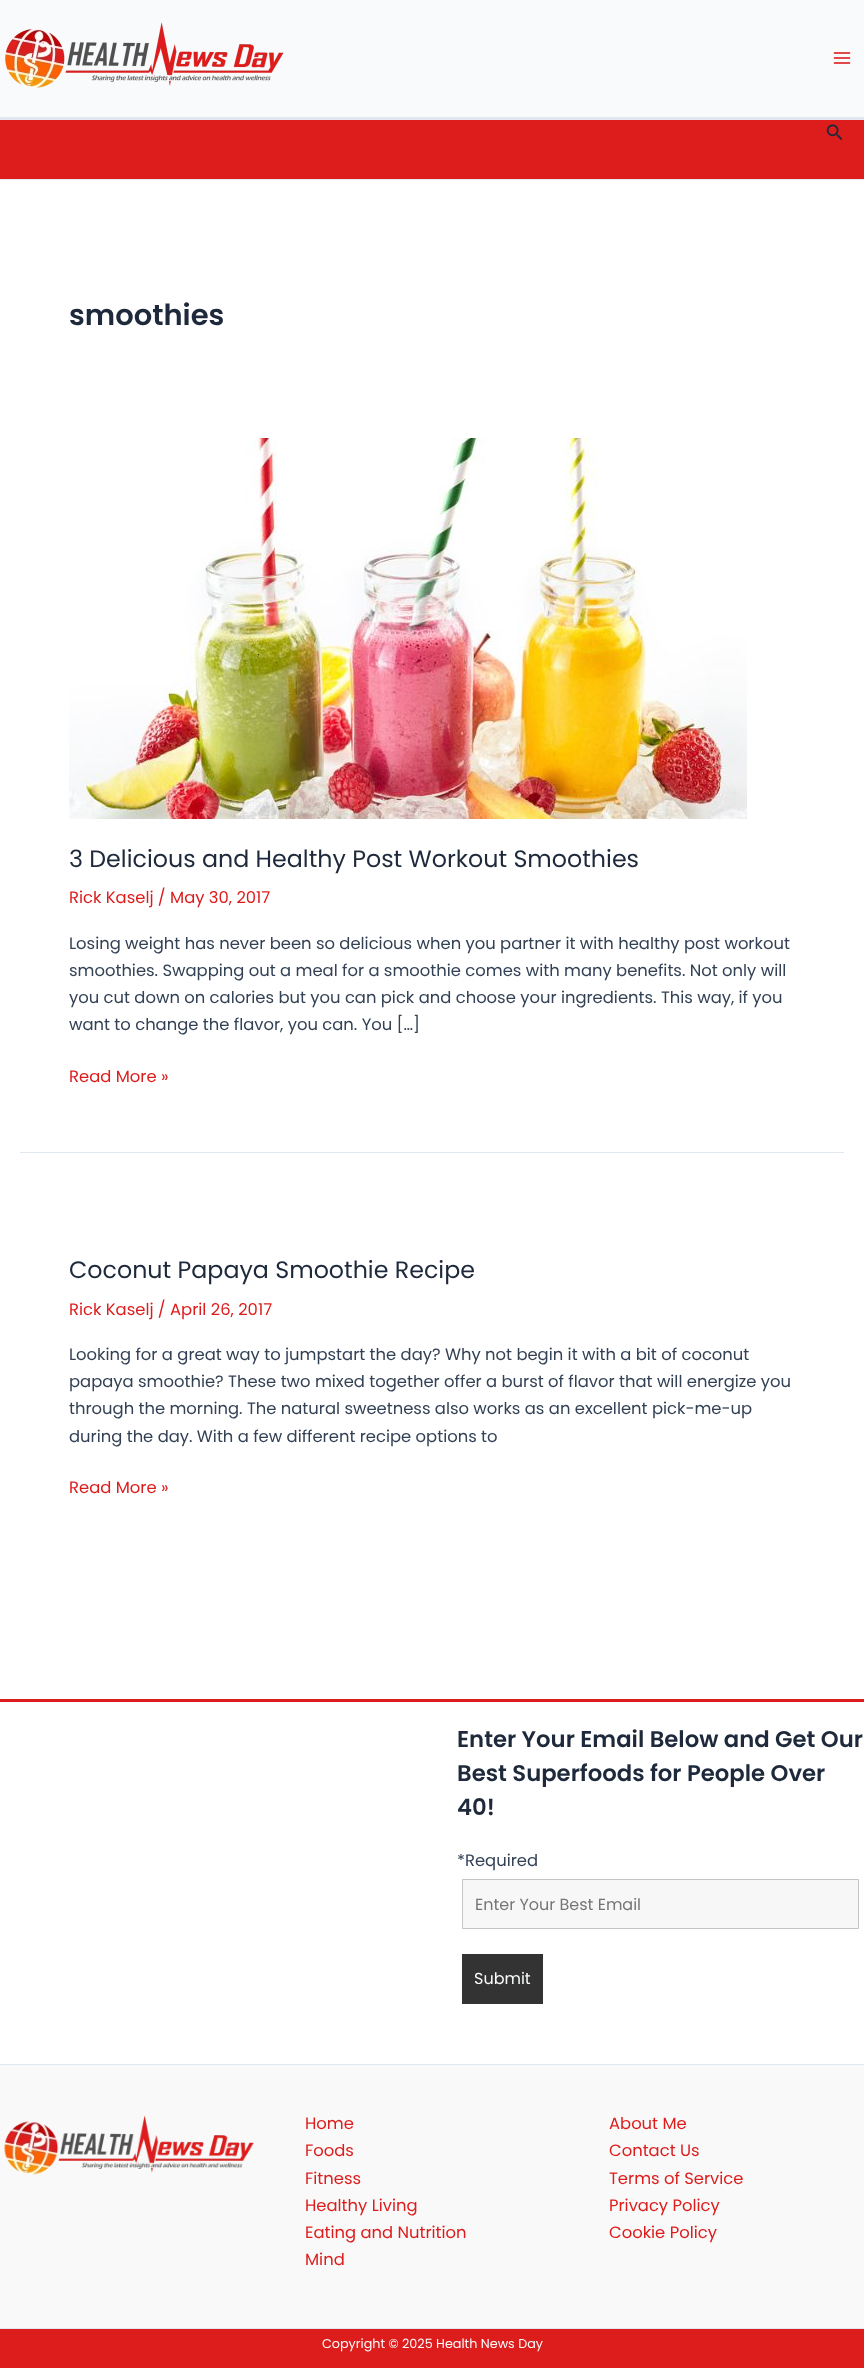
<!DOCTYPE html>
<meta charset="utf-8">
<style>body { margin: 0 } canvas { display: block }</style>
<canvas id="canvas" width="864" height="2368"></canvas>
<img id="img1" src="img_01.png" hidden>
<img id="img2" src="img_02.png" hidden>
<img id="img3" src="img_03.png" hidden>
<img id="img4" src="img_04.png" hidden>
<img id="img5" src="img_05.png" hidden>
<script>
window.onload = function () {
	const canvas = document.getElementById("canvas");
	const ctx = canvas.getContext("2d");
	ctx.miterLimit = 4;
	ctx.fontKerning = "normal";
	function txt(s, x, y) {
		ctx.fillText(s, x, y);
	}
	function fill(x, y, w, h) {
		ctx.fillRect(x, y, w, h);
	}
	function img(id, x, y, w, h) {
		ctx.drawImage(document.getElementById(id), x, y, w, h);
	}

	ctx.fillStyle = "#FFFFFF";
	fill(0, 0, 864, 2368);
	ctx.fillStyle = "#F9FAFB";
	fill(0, 0, 864, 117);
	ctx.fillStyle = "#E2E8F0";
	fill(0, 117, 864, 3);
	img("img1", 5, 22, 279, 66);
	img("img2", 833, 52, 18, 12);
	ctx.fillStyle = "#DD1C1C";
	fill(0, 120, 864, 59);
	ctx.fillStyle = "#E2E8F0";
	fill(0, 179, 864, 1);
	img("img3", 826, 124, 16, 17);
	fill(20, 1152, 824, 1);
	img("img4", 69, 438, 678, 381);
	ctx.fillStyle = "#DD1C1C";
	fill(0, 1699, 864, 3);
	ctx.fillStyle = "#F7F7F7";
	ctx.beginPath();
	ctx.rect(462.5, 1879.5, 396, 49);
	ctx.fill();
	ctx.strokeStyle = "#C4C4C4";
	ctx.stroke();
	ctx.fillStyle = "#333333";
	fill(462, 1954, 81, 50);
	ctx.fillStyle = "#F9F9F9";
	fill(0, 2065, 864, 263);
	ctx.fillStyle = "#E2E8F0";
	fill(0, 2064, 864, 1);
	img("img5", 4, 2115, 250, 60);
	ctx.fillStyle = "#DD1C1C";
	fill(0, 2329, 864, 39);
	ctx.fillStyle = "#E2E8F0";
	fill(0, 2328, 864, 1);
	ctx.font = "600 29px Poppins";
	ctx.fillStyle = "#1E293B";
	txt("smoothies", 69, 325);
	ctx.font = "23.75px Poppins";
	txt("3 Delicious and Healthy Post Workout Smoothies", 69, 867);
	ctx.font = "16.4px Poppins";
	ctx.fillStyle = "#DD1C1C";
	txt("Rick Kaselj / May 30, 2017", 69, 903);
	ctx.fillStyle = "#334155";
	txt("Losing weight has never been so delicious when you partner it with healthy post workout", 69, 949);
	txt("smoothies. Swapping out a meal for a smoothie comes with many benefits. Not only will", 69, 976);
	txt("you cut down on calories but you can pick and choose your ingredients. This way, if you", 69, 1003);
	txt("want to change the flavor, you can. You […]", 69, 1030);
	ctx.fillStyle = "#DD1C1C";
	txt("Read More »", 69, 1082);
	ctx.font = "23.75px Poppins";
	ctx.fillStyle = "#1E293B";
	txt("Coconut Papaya Smoothie Recipe", 69, 1278);
	ctx.font = "16.4px Poppins";
	ctx.fillStyle = "#DD1C1C";
	txt("Rick Kaselj / April 26, 2017", 69, 1315);
	ctx.fillStyle = "#334155";
	txt("Looking for a great way to jumpstart the day? Why not begin it with a bit of coconut", 69, 1360);
	txt("papaya smoothie? These two mixed together offer a burst of flavor that will energize you", 69, 1387);
	txt("through the morning. The natural sweetness also works as an excellent pick-me-up", 69, 1414);
	txt("during the day. With a few different recipe options to", 69, 1442);
	ctx.fillStyle = "#DD1C1C";
	txt("Read More »", 69, 1493);
	ctx.font = "600 22.75px Poppins";
	ctx.fillStyle = "#1E293B";
	txt("Enter Your Email Below and Get Our", 457, 1747);
	txt("Best Superfoods for People Over", 457, 1781);
	txt("40!", 457, 1815);
	ctx.font = "16.4px Poppins";
	ctx.fillStyle = "#334155";
	txt("*Required", 457, 1866);
	ctx.font = "16px Poppins";
	ctx.fillStyle = "#757575";
	txt("Enter Your Best Email", 475, 1910);
	ctx.fillStyle = "#F9FAFB";
	txt("Submit", 474, 1984);
	ctx.font = "16.4px Poppins";
	ctx.fillStyle = "#DD1C1C";
	txt("Home", 305, 2129);
	txt("Foods", 305, 2156);
	txt("Fitness", 305, 2184);
	txt("Healthy Living", 305, 2211);
	txt("Eating and Nutrition", 305, 2238);
	txt("Mind", 305, 2265);
	txt("About Me", 609, 2129);
	txt("Contact Us", 609, 2156);
	txt("Terms of Service", 609, 2184);
	txt("Privacy Policy", 609, 2211);
	txt("Cookie Policy", 609, 2238);
	ctx.font = "12.75px Poppins";
	ctx.fillStyle = "#F9FAFB";
	txt("Copyright © 2025 Health News Day", 322, 2348);
};
</script>
